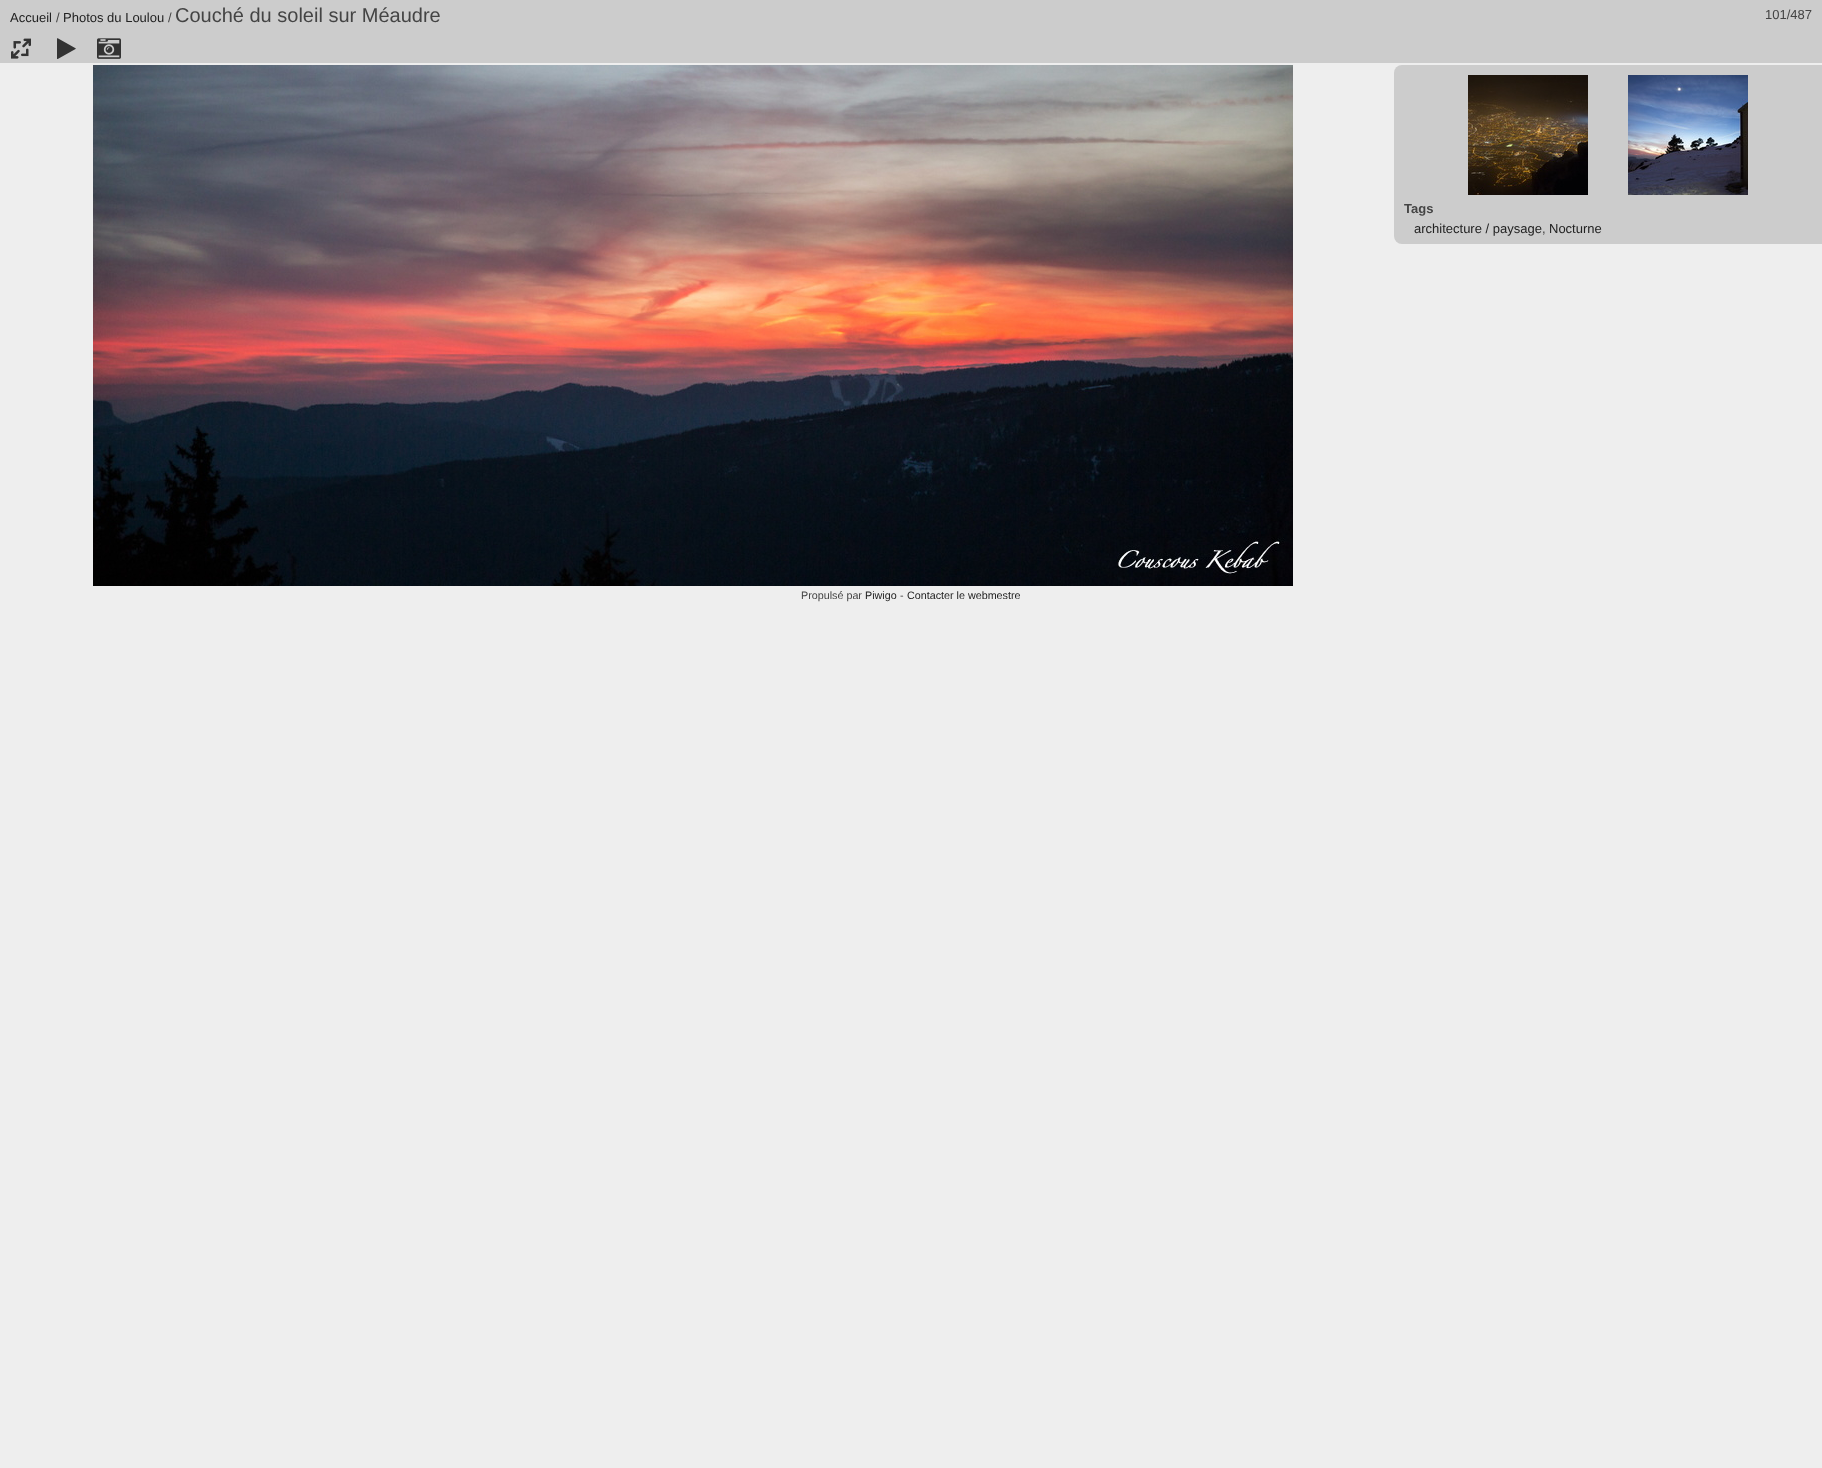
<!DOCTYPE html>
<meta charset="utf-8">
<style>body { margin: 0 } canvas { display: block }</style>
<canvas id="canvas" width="1822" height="1468"></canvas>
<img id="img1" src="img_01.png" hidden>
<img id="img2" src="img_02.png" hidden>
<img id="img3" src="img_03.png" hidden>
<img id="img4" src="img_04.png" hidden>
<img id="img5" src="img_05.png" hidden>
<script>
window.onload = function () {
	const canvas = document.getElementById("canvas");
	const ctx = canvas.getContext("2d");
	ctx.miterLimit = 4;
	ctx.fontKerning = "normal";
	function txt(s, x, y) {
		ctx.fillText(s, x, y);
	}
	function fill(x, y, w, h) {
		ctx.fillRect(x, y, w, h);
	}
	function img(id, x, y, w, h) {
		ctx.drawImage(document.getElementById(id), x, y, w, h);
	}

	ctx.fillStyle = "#EEEEEE";
	fill(0, 0, 1822, 1468);
	ctx.fillStyle = "#CCCCCC";
	fill(0, 0, 1822, 63);
	img("img1", 11, 38, 20, 21);
	img("img2", 97, 38, 24, 21);
	img("img3", 93, 65, 1200, 521);
	ctx.beginPath();
	ctx.roundRect(1394, 65, 428, 179, [8, 0, 0, 8]);
	ctx.fill();
	img("img4", 1468, 75, 120, 120);
	img("img5", 1628, 75, 120, 120);
	ctx.font = "13px Liberation Sans";
	ctx.fillStyle = "#222222";
	txt("Accueil", 10, 22);
	ctx.fillStyle = "#444444";
	txt("/", 56, 22);
	ctx.fillStyle = "#222222";
	txt("Photos du Loulou", 63, 22);
	ctx.fillStyle = "#444444";
	txt("/", 168, 22);
	ctx.font = "20px Liberation Sans";
	txt("Couché du soleil sur Méaudre", 175, 22);
	ctx.font = "13px Liberation Sans";
	txt("101/487", 1765, 19);
	ctx.font = "24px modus";
	ctx.fillStyle = "#333333";
	txt("▶", 57, 57);
	ctx.font = "bold 13px Liberation Sans";
	ctx.fillStyle = "#444444";
	txt("Tags", 1404, 213);
	ctx.font = "13px Liberation Sans";
	ctx.fillStyle = "#222222";
	txt("architecture / paysage", 1414, 233);
	ctx.fillStyle = "#444444";
	txt(",", 1542, 233);
	ctx.fillStyle = "#222222";
	txt("Nocturne", 1549, 233);
	ctx.font = "10.75px Liberation Sans";
	ctx.fillStyle = "#444444";
	txt("Propulsé par", 801, 599);
	ctx.fillStyle = "#222222";
	txt("Piwigo", 865, 599);
	ctx.fillStyle = "#444444";
	txt("-", 900, 599);
	ctx.fillStyle = "#222222";
	txt("Contacter le webmestre", 907, 599);
};
</script>
